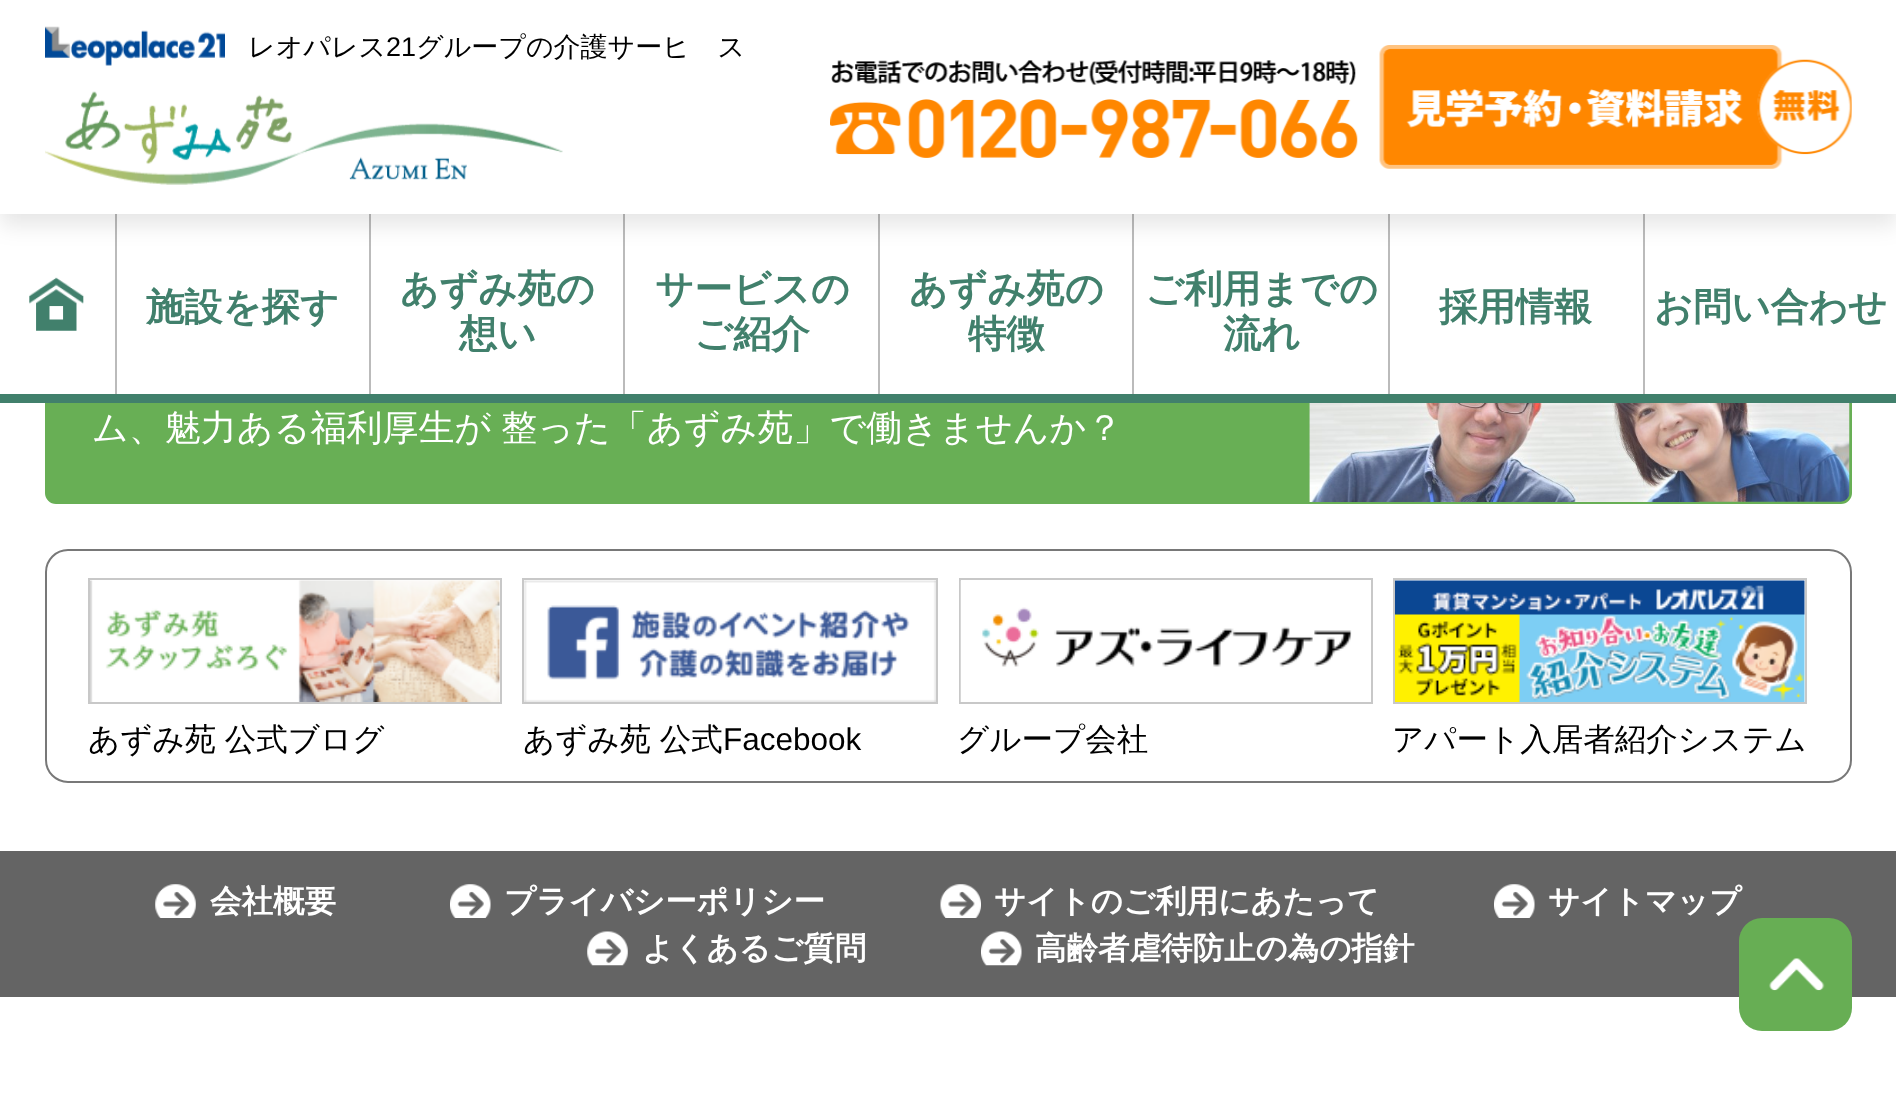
<!DOCTYPE html>
<meta charset="utf-8">
<style>body { margin: 0 } canvas { display: block }</style>
<canvas id="canvas" width="1896" height="1120"></canvas>
<img id="img1" src="img_01.png" hidden>
<img id="img2" src="img_02.png" hidden>
<img id="img3" src="img_03.png" hidden>
<img id="img4" src="img_04.png" hidden>
<img id="img5" src="img_05.png" hidden>
<img id="img6" src="img_06.png" hidden>
<img id="img7" src="img_07.png" hidden>
<img id="img8" src="img_08.png" hidden>
<img id="img9" src="img_09.png" hidden>
<img id="img10" src="img_10.png" hidden>
<img id="img11" src="img_11.png" hidden>
<img id="img12" src="img_12.png" hidden>
<img id="img13" src="img_13.png" hidden>
<img id="img14" src="img_14.png" hidden>
<img id="img15" src="img_15.png" hidden>
<img id="img16" src="img_16.png" hidden>
<img id="img17" src="img_17.png" hidden>
<script>
window.onload = function () {
	const canvas = document.getElementById("canvas");
	const ctx = canvas.getContext("2d");
	ctx.miterLimit = 4;
	ctx.fontKerning = "none";
	function txt(s, x, y) {
		ctx.fillText(s, x, y);
	}
	function fill(x, y, w, h) {
		ctx.fillRect(x, y, w, h);
	}
	function round(x, y, w, h, r) {
		ctx.beginPath();
		ctx.roundRect(x, y, w, h, r);
		ctx.fill();
	}
	function img(id, x, y, w, h) {
		ctx.drawImage(document.getElementById(id), x, y, w, h);
	}

	ctx.fillStyle = "#FFFFFF";
	fill(0, 0, 1896, 1120);
	ctx.fillStyle = "#68AF55";
	ctx.beginPath();
	ctx.roundRect(46, 215, 1805, 288, 10);
	ctx.fill();
	ctx.strokeStyle = "#68AF55";
	ctx.lineWidth = 2;
	ctx.stroke();
	ctx.fillStyle = "#FFFFFF";
	fill(45, 214, 1807, 180);
	ctx.fillStyle = "#BBBBBB";
	fill(115, 214, 2, 180);
	fill(369, 214, 2, 180);
	fill(623, 214, 2, 180);
	fill(878, 214, 2, 180);
	fill(1132, 214, 2, 180);
	fill(1388, 214, 2, 180);
	fill(1643, 214, 2, 180);
	ctx.fillStyle = "rgba(0, 0, 0, 0.1)";
	ctx.filter = "blur(11px)";
	ctx.beginPath();
	ctx.rect(0, 11, 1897, 214);
	ctx.fill();
	ctx.filter = "none";
	ctx.fillStyle = "#FFFFFF";
	fill(0, 0, 1896, 214);
	img("img1", 45, 26, 180, 40);
	img("img2", 830, 60, 528, 98);
	img("img3", 1379, 45, 473, 124);
	img("img4", 45, 91, 518, 94);
	ctx.fillStyle = "#41806C";
	fill(0, 394, 1896, 9);
	img("img5", 29, 277, 55, 54);
	img("img6", 1309, 403, 541, 99);
	ctx.beginPath();
	ctx.roundRect(46, 550, 1805, 232, 22);
	ctx.strokeStyle = "#787878";
	ctx.stroke();
	ctx.strokeStyle = "#C8C8C8";
	ctx.strokeRect(89, 579, 412, 124);
	img("img7", 90, 580, 410, 122);
	ctx.strokeRect(523, 579, 414, 124);
	img("img8", 524, 580, 412, 122);
	ctx.strokeRect(960, 579, 412, 124);
	img("img9", 960, 580, 392, 122);
	ctx.strokeRect(1394, 579, 412, 124);
	img("img10", 1395, 580, 410, 122);
	ctx.fillStyle = "#646464";
	fill(0, 851, 1896, 146);
	img("img11", 155, 884, 41, 34);
	img("img12", 450, 884, 41, 34);
	img("img13", 940, 884, 41, 34);
	img("img14", 1494, 884, 41, 34);
	img("img15", 587, 931, 41, 35);
	img("img16", 981, 931, 41, 35);
	ctx.fillStyle = "#67AE54";
	round(1739, 918, 113, 113, 23);
	img("img17", 1769, 958, 56, 33);
	ctx.font = "500 27px WenQuanYi Zen Hei";
	ctx.fillStyle = "#000000";
	txt("レオパレス", 248, 56);
	ctx.font = "27px Liberation Sans";
	txt("21", 386, 56);
	ctx.font = "500 27px WenQuanYi Zen Hei";
	txt("グループの介護サービス", 416, 56);
	ctx.font = "bold 38.25px WenQuanYi Zen Hei";
	ctx.fillStyle = "#41806C";
	txt("施設を探す", 146, 320);
	txt("あずみ苑の", 400, 302);
	txt("想い", 459, 347);
	txt("サービスの", 655, 302);
	txt("ご紹介", 694, 347);
	txt("あずみ苑の", 909, 302);
	txt("特徴", 968, 347);
	txt("ご利用までの", 1145, 302);
	txt("流れ", 1223, 347);
	txt("採用情報", 1439, 320);
	txt("お問い合わせ", 1654, 320);
	ctx.wordSpacing = "-1px";
	ctx.font = "500 36px WenQuanYi Zen Hei";
	ctx.fillStyle = "#FFFFFF";
	txt("ム、魅力ある福利厚生が 整った「あずみ苑」で働きませんか？", 92, 440);
	ctx.font = "500 31.5px WenQuanYi Zen Hei";
	ctx.fillStyle = "#000000";
	txt("あずみ苑 公式ブログ", 88, 750);
	txt("あずみ苑 公式", 523, 750);
	ctx.wordSpacing = "0px";
	ctx.font = "31.5px Liberation Sans";
	txt("Facebook", 723, 750);
	ctx.font = "500 31.5px WenQuanYi Zen Hei";
	txt("グループ会社", 957, 750);
	txt("アパート入居者紹介システム", 1392, 750);
	ctx.font = "bold 31.5px WenQuanYi Zen Hei";
	ctx.fillStyle = "#FFFFFF";
	txt("会社概要", 210, 912);
	txt("プライバシーポリシー", 504, 912);
	txt("サイトのご利用にあたって", 994, 912);
	txt("サイトマップ", 1548, 912);
	txt("よくあるご質問", 642, 959);
	txt("高齢者虐待防止の為の指針", 1035, 959);
};
</script>
